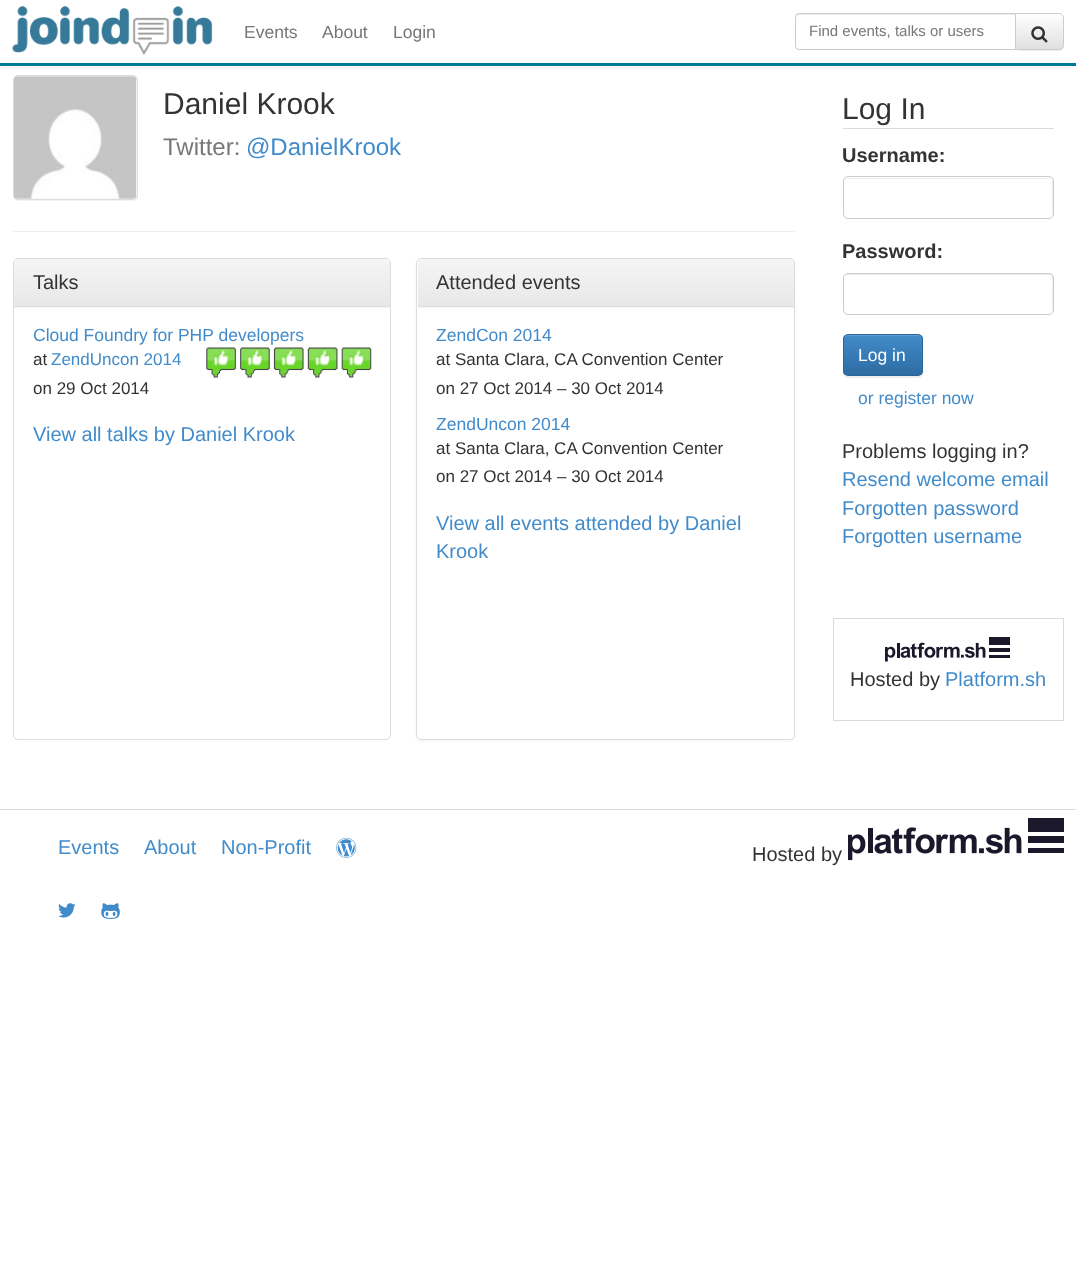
<!DOCTYPE html>
<meta charset="utf-8">
<style>body { margin: 0 } canvas { display: block }</style>
<canvas id="canvas" width="1076" height="1269"></canvas>
<img id="img1" src="img_01.png" hidden>
<img id="img2" src="img_02.png" hidden>
<img id="img3" src="img_03.png" hidden>
<img id="img4" src="img_04.png" hidden>
<img id="img5" src="img_05.png" hidden>
<img id="img6" src="img_06.png" hidden>
<img id="img7" src="img_07.png" hidden>
<img id="img8" src="img_08.png" hidden>
<img id="img9" src="img_09.png" hidden>
<script>
window.onload = function () {
	const canvas = document.getElementById("canvas");
	const ctx = canvas.getContext("2d");
	ctx.miterLimit = 4;
	ctx.fontKerning = "normal";
	function txt(s, x, y) {
		ctx.fillText(s, x, y);
	}
	function fill(x, y, w, h) {
		ctx.fillRect(x, y, w, h);
	}
	function img(id, x, y, w, h) {
		ctx.drawImage(document.getElementById(id), x, y, w, h);
	}
	let gradient;

	ctx.fillStyle = "#FFFFFF";
	fill(0, 0, 1076, 1269);
	ctx.fillStyle = "rgba(0, 0, 0, 0.05)";
	ctx.filter = "blur(0.5px)";
	ctx.beginPath();
	ctx.roundRect(13, 76, 125, 125, 5);
	ctx.fill();
	ctx.filter = "none";
	ctx.beginPath();
	ctx.roundRect(13.5, 75.5, 124, 124, 4.5);
	ctx.strokeStyle = "#DDDDDD";
	ctx.stroke();
	ctx.save();
	ctx.beginPath();
	ctx.rect(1, 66, 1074, 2);
	ctx.clip();
	ctx.fillStyle = "rgba(0, 0, 0, 0.07)";
	ctx.filter = "blur(3px)";
	ctx.beginPath();
	ctx.rect(0, 1, 1076, 65);
	ctx.fill();
	ctx.filter = "none";
	ctx.restore();
	ctx.fillStyle = "#007B97";
	fill(0, 63, 1076, 3);
	img("img1", 12, 6, 201, 50);
	ctx.fillStyle = "rgba(0, 0, 0, 0.07)";
	ctx.filter = "blur(0.5px)";
	ctx.beginPath();
	ctx.roundRect(1015, 14, 49, 37, 5);
	ctx.fill();
	ctx.filter = "none";
	ctx.save();
	ctx.beginPath();
	ctx.roundRect(1015, 13, 49, 37, [0, 5, 5, 0]);
	ctx.clip();
	gradient = ctx.createLinearGradient(1039, 14, 1039, 49);
	gradient.addColorStop(0, "#FFFFFF");
	gradient.addColorStop(1, "#E0E0E0");
	ctx.fillStyle = gradient;
	fill(1016, 14, 48, 35);
	ctx.restore();
	ctx.fillStyle = "rgba(255, 255, 255, 0.15)";
	ctx.beginPath();
	ctx.moveTo(1016, 15);
	ctx.lineTo(1045, 15);
	ctx.bezierCurveTo(1063, 15, 1062, 11, 1062, 28);
	ctx.lineTo(1062, 48);
	ctx.bezierCurveTo(1062, 47, 1063, 46, 1063, 45);
	ctx.lineTo(1063, 18);
	ctx.bezierCurveTo(1063, 16, 1061, 14, 1059, 14);
	ctx.lineTo(1016, 14);
	ctx.closePath();
	ctx.fill();
	ctx.beginPath();
	ctx.roundRect(1015.5, 13.5, 48, 36, [0, 4.5, 4.5, 0]);
	ctx.strokeStyle = "#CCCCCC";
	ctx.stroke();
	ctx.fillStyle = "#FFFFFF";
	ctx.beginPath();
	ctx.roundRect(795, 13, 221, 37, [4, 0, 0, 4]);
	ctx.fill();
	ctx.fillStyle = "#ECECEC";
	ctx.beginPath();
	ctx.moveTo(799, 15);
	ctx.lineTo(1015, 15);
	ctx.lineTo(1015, 14);
	ctx.lineTo(798, 14);
	ctx.bezierCurveTo(796, 14, 796, 16, 796, 18);
	ctx.bezierCurveTo(796, 16, 797, 15, 799, 15);
	ctx.closePath();
	ctx.fill();
	ctx.beginPath();
	ctx.roundRect(795.5, 13.5, 220, 36, [3.5, 0, 0, 3.5]);
	ctx.stroke();
	img("img2", 1031, 26, 17, 17);
	ctx.fillStyle = "#EEEEEE";
	fill(13, 231, 782, 1);
	img("img3", 14, 76, 122, 123);
	ctx.beginPath();
	ctx.roundRect(13.5, 258.5, 377, 481, 4.5);
	ctx.strokeStyle = "#DDDDDD";
	ctx.stroke();
	ctx.fillStyle = "#F5F5F5";
	ctx.beginPath();
	ctx.roundRect(14, 259, 376, 49, [4, 4, 0, 0]);
	ctx.fill();
	gradient = ctx.createLinearGradient(202, 259, 202, 306);
	gradient.addColorStop(0, "#F5F5F5");
	gradient.addColorStop(1, "#E8E8E8");
	ctx.fillStyle = gradient;
	ctx.beginPath();
	ctx.roundRect(14, 259, 376, 47, [4, 4, 0, 0]);
	ctx.fill();
	ctx.fillStyle = "#DDDDDD";
	fill(14, 306, 376, 1);
	img("img4", 206, 347, 166, 31);
	ctx.fillStyle = "rgba(0, 0, 0, 0.05)";
	ctx.filter = "blur(1px)";
	ctx.beginPath();
	ctx.roundRect(416, 259, 379, 482, 5);
	ctx.fill();
	ctx.filter = "none";
	ctx.fillStyle = "#FFFFFF";
	ctx.beginPath();
	ctx.roundRect(416.5, 258.5, 378, 481, 4.5);
	ctx.fill();
	ctx.stroke();
	ctx.fillStyle = "#F5F5F5";
	ctx.beginPath();
	ctx.roundRect(418, 259, 376, 49, [4, 4, 0, 0]);
	ctx.fill();
	gradient = ctx.createLinearGradient(606, 259, 606, 306);
	gradient.addColorStop(0, "#F5F5F5");
	gradient.addColorStop(1, "#E8E8E8");
	ctx.fillStyle = gradient;
	ctx.beginPath();
	ctx.roundRect(418, 259, 376, 47, [4, 4, 0, 0]);
	ctx.fill();
	ctx.fillStyle = "#DDDDDD";
	fill(418, 306, 376, 1);
	ctx.fillStyle = "#D7DCDF";
	fill(843, 128, 211, 1);
	ctx.fillStyle = "#ECECEC";
	ctx.beginPath();
	ctx.moveTo(848, 179);
	ctx.lineTo(1049, 179);
	ctx.bezierCurveTo(1051, 179, 1052, 180, 1052, 182);
	ctx.lineTo(1052, 217);
	ctx.bezierCurveTo(1052, 216, 1053, 215, 1053, 214);
	ctx.lineTo(1053, 182);
	ctx.bezierCurveTo(1053, 180, 1051, 178, 1049, 178);
	ctx.lineTo(848, 178);
	ctx.bezierCurveTo(846, 178, 845, 179, 844, 180);
	ctx.bezierCurveTo(845, 179, 846, 179, 848, 179);
	ctx.closePath();
	ctx.fill();
	ctx.beginPath();
	ctx.roundRect(843.5, 176.5, 210, 42, 4.5);
	ctx.strokeStyle = "#CCCCCC";
	ctx.stroke();
	ctx.beginPath();
	ctx.moveTo(848, 275);
	ctx.lineTo(1049, 275);
	ctx.bezierCurveTo(1054, 275, 1052, 288, 1052, 290);
	ctx.lineTo(1052, 313);
	ctx.bezierCurveTo(1052, 312, 1053, 311, 1053, 310);
	ctx.lineTo(1053, 278);
	ctx.bezierCurveTo(1053, 276, 1051, 274, 1049, 274);
	ctx.lineTo(848, 274);
	ctx.bezierCurveTo(846, 274, 844, 276, 844, 278);
	ctx.lineTo(844, 279);
	ctx.bezierCurveTo(844, 277, 845, 275, 848, 275);
	ctx.closePath();
	ctx.fill();
	ctx.beginPath();
	ctx.roundRect(843.5, 273.5, 210, 41, 4.5);
	ctx.stroke();
	ctx.fillStyle = "rgba(0, 0, 0, 0.07)";
	ctx.filter = "blur(0.5px)";
	ctx.beginPath();
	ctx.roundRect(843, 335, 80, 43, 5);
	ctx.fill();
	ctx.filter = "none";
	ctx.save();
	ctx.beginPath();
	ctx.roundRect(843, 334, 80, 42, 5);
	ctx.clip();
	gradient = ctx.createLinearGradient(883, 335, 883, 375);
	gradient.addColorStop(0, "#428BCA");
	gradient.addColorStop(1, "#2D6CA2");
	ctx.fillStyle = gradient;
	fill(843, 335, 80, 40);
	ctx.restore();
	ctx.fillStyle = "#5E9CD2";
	ctx.beginPath();
	ctx.moveTo(848, 336);
	ctx.lineTo(918, 336);
	ctx.bezierCurveTo(920, 336, 921, 338, 921, 340);
	ctx.bezierCurveTo(921, 332, 910, 335, 906, 335);
	ctx.lineTo(860, 335);
	ctx.bezierCurveTo(855, 335, 844, 332, 844, 340);
	ctx.bezierCurveTo(844, 338, 845, 336, 848, 336);
	ctx.closePath();
	ctx.fill();
	ctx.beginPath();
	ctx.roundRect(843.5, 334.5, 79, 41, 4.5);
	ctx.strokeStyle = "#2B669A";
	ctx.stroke();
	ctx.strokeStyle = "#D7DCDF";
	ctx.strokeRect(833.5, 618.5, 230, 102);
	img("img5", 885, 637, 125, 25);
	ctx.fillStyle = "#D7DCDF";
	fill(0, 809, 1076, 1);
	img("img6", 336, 837, 21, 21);
	img("img7", 58, 903, 18, 15);
	img("img8", 101, 903, 19, 16);
	img("img9", 848, 818, 216, 43);
	ctx.font = "17.5px Liberation Sans";
	ctx.fillStyle = "#777777";
	txt("Events", 244, 38);
	txt("About", 322, 38);
	txt("Login", 393, 38);
	ctx.font = "15px Liberation Sans";
	txt("Find events, talks or users", 809, 36);
	ctx.font = "30px Liberation Sans";
	ctx.fillStyle = "#333333";
	txt("Daniel Krook", 163, 114);
	ctx.font = "24px Liberation Sans";
	ctx.fillStyle = "#777777";
	txt("Twitter:", 163, 155);
	ctx.fillStyle = "#428BCA";
	txt("@DanielKrook", 246, 155);
	ctx.font = "20px Liberation Sans";
	ctx.fillStyle = "#333333";
	txt("Talks", 33, 289);
	ctx.font = "17.5px Liberation Sans";
	ctx.fillStyle = "#428BCA";
	txt("Cloud Foundry for PHP developers", 33, 341);
	ctx.font = "17px Liberation Sans";
	ctx.fillStyle = "#333333";
	txt("at", 33, 365);
	ctx.fillStyle = "#428BCA";
	txt("ZendUncon 2014", 51, 365);
	ctx.fillStyle = "#333333";
	txt("on 29 Oct 2014", 33, 394);
	ctx.font = "20px Liberation Sans";
	ctx.fillStyle = "#428BCA";
	txt("View all talks by Daniel Krook", 33, 441);
	ctx.fillStyle = "#333333";
	txt("Attended events", 436, 289);
	ctx.font = "17.5px Liberation Sans";
	ctx.fillStyle = "#428BCA";
	txt("ZendCon 2014", 436, 341);
	ctx.font = "17px Liberation Sans";
	ctx.fillStyle = "#333333";
	txt("at Santa Clara, CA Convention Center", 436, 365);
	txt("on 27 Oct 2014 – 30 Oct 2014", 436, 394);
	ctx.font = "17.5px Liberation Sans";
	ctx.fillStyle = "#428BCA";
	txt("ZendUncon 2014", 436, 430);
	ctx.font = "17px Liberation Sans";
	ctx.fillStyle = "#333333";
	txt("at Santa Clara, CA Convention Center", 436, 454);
	txt("on 27 Oct 2014 – 30 Oct 2014", 436, 482);
	ctx.font = "20px Liberation Sans";
	ctx.fillStyle = "#428BCA";
	txt("View all events attended by Daniel", 436, 530);
	txt("Krook", 436, 558);
	ctx.font = "30px Liberation Sans";
	ctx.fillStyle = "#333333";
	txt("Log In", 842, 119);
	ctx.font = "bold 20px Liberation Sans";
	txt("Username:", 842, 162);
	txt("Password:", 842, 258);
	ctx.font = "17.5px Liberation Sans";
	ctx.fillStyle = "#FFFFFF";
	txt("Log in", 858, 361);
	ctx.fillStyle = "#428BCA";
	txt("or register now", 858, 404);
	ctx.font = "20px Liberation Sans";
	ctx.fillStyle = "#333333";
	txt("Problems logging in?", 842, 458);
	ctx.fillStyle = "#428BCA";
	txt("Resend welcome email", 842, 486);
	txt("Forgotten password", 842, 515);
	txt("Forgotten username", 842, 543);
	ctx.fillStyle = "#333333";
	txt("Hosted by", 850, 686);
	ctx.fillStyle = "#428BCA";
	txt("Platform.sh", 945, 686);
	txt("Events", 58, 854);
	txt("About", 144, 854);
	txt("Non-Profit", 221, 854);
	ctx.fillStyle = "#333333";
	txt("Hosted by", 752, 861);
};
</script>
